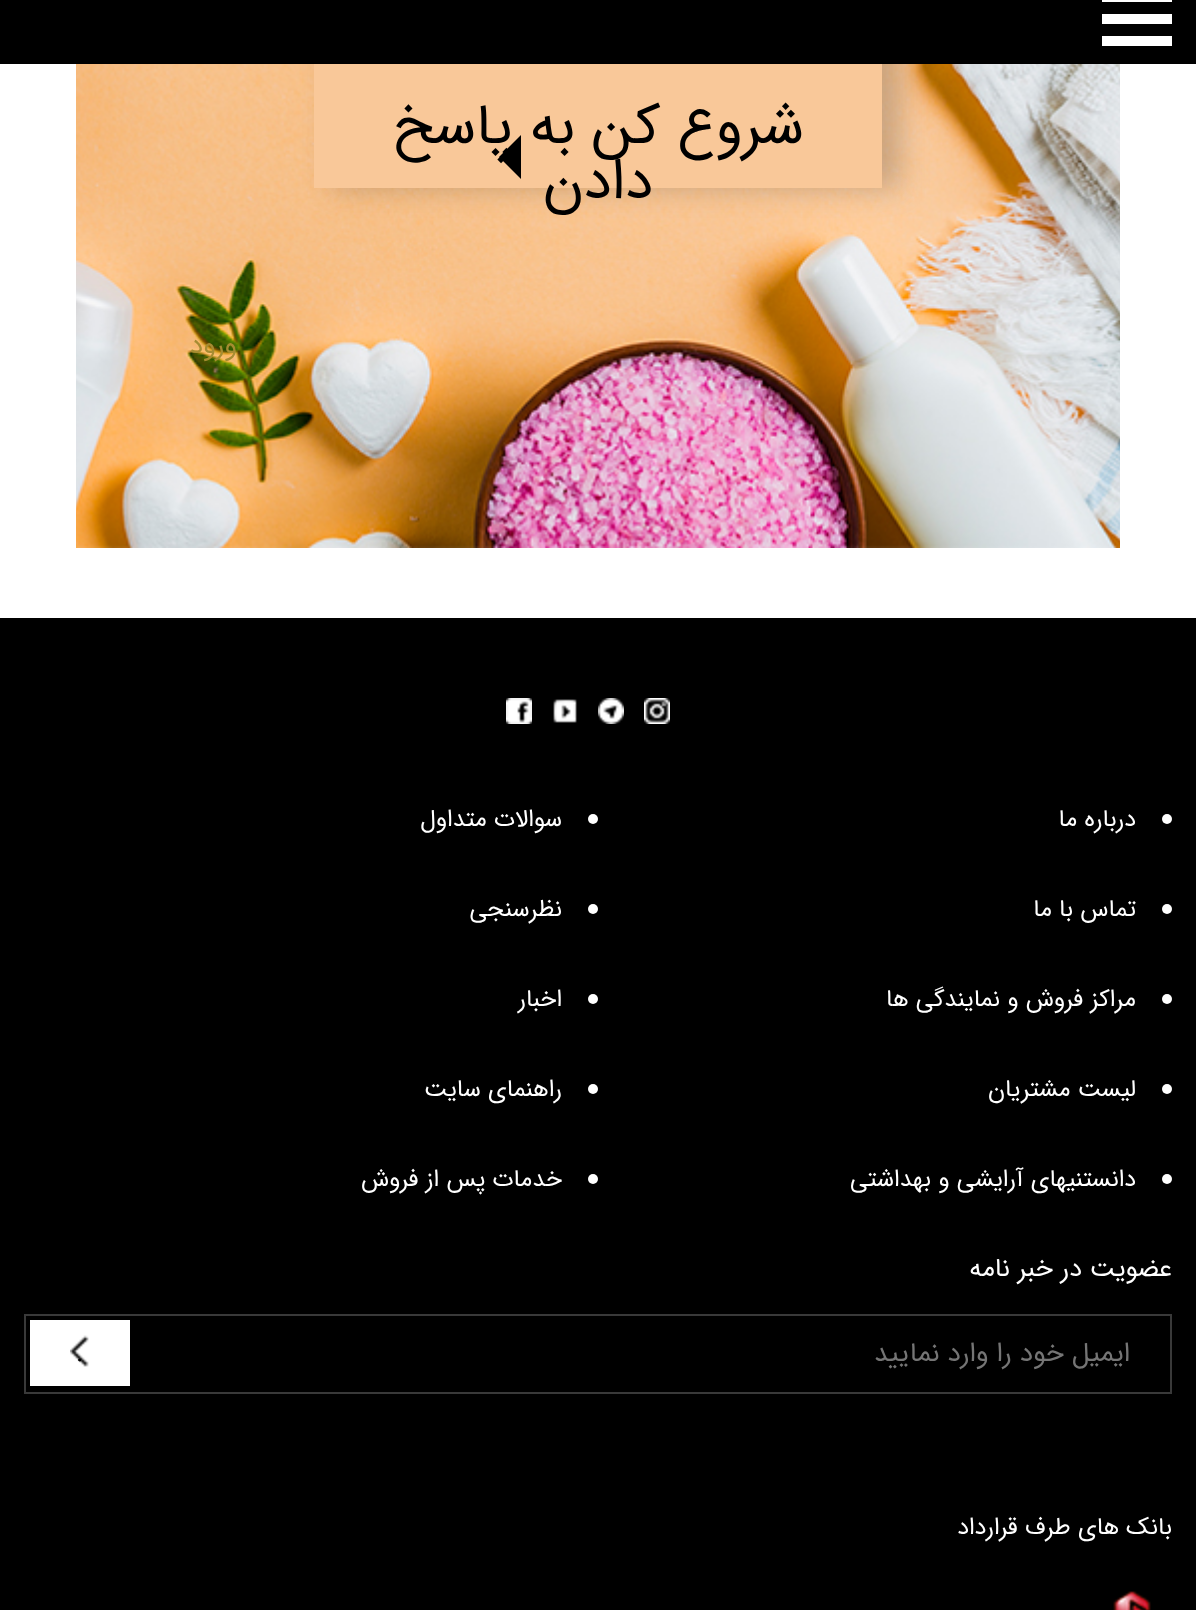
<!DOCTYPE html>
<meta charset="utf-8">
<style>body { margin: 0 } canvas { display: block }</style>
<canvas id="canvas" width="1196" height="1610"></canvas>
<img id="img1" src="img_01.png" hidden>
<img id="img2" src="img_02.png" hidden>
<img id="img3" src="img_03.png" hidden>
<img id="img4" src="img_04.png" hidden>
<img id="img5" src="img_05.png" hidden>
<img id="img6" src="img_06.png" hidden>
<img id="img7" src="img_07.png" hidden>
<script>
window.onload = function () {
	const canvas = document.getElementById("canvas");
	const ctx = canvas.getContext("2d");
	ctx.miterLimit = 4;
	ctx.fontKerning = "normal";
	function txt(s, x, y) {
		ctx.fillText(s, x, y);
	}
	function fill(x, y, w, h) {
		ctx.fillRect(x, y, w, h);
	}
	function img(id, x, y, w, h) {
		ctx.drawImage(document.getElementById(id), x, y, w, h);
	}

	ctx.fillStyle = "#FFFFFF";
	fill(0, 0, 1196, 1610);
	img("img1", 76, 64, 1044, 484);
	ctx.fillStyle = "rgba(0, 0, 0, 0.19)";
	ctx.filter = "blur(14.5px)";
	ctx.beginPath();
	ctx.rect(332, -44, 568, 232);
	ctx.fill();
	ctx.filter = "none";
	ctx.fillStyle = "#000000";
	fill(0, 0, 1196, 64);
	ctx.fillStyle = "#FFFFFF";
	fill(1102, 0, 70, 2);
	fill(1102, 14, 70, 10);
	fill(1102, 36, 70, 10);
	ctx.fillStyle = "#F9C899";
	fill(314, 64, 568, 124);
	ctx.fillStyle = "#000000";
	ctx.beginPath();
	ctx.moveTo(521, 135);
	ctx.lineTo(521, 179);
	ctx.lineTo(499, 157);
	ctx.closePath();
	ctx.fill();
	fill(0, 618, 1196, 992);
	img("img2", 644, 698, 26, 26);
	img("img3", 598, 698, 26, 26);
	img("img4", 553, 699, 24, 24);
	img("img5", 506, 698, 26, 26);
	ctx.fillStyle = "#FFFFFF";
	ctx.beginPath();
	ctx.arc(1167, 819, 5, 0, Math.PI * 2);
	ctx.fill();
	ctx.beginPath();
	ctx.arc(593, 819, 5, 0, Math.PI * 2);
	ctx.fill();
	ctx.beginPath();
	ctx.arc(1167, 909, 5, 0, Math.PI * 2);
	ctx.fill();
	ctx.beginPath();
	ctx.arc(593, 909, 5, 0, Math.PI * 2);
	ctx.fill();
	ctx.beginPath();
	ctx.arc(1167, 999, 5, 0, Math.PI * 2);
	ctx.fill();
	ctx.beginPath();
	ctx.arc(593, 999, 5, 0, Math.PI * 2);
	ctx.fill();
	ctx.beginPath();
	ctx.arc(1167, 1089, 5, 0, Math.PI * 2);
	ctx.fill();
	ctx.beginPath();
	ctx.arc(593, 1089, 5, 0, Math.PI * 2);
	ctx.fill();
	ctx.beginPath();
	ctx.arc(1167, 1179, 5, 0, Math.PI * 2);
	ctx.fill();
	ctx.beginPath();
	ctx.arc(593, 1179, 5, 0, Math.PI * 2);
	ctx.fill();
	ctx.strokeStyle = "#393939";
	ctx.lineWidth = 2;
	ctx.strokeRect(25, 1315, 1146, 78);
	fill(30, 1320, 100, 66);
	img("img6", 70, 1335, 19, 32);
	img("img7", 1113, 1591, 38, 19);
	ctx.direction = "rtl";
	ctx.font = "57.25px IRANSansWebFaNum";
	ctx.fillStyle = "#000000";
	txt("شروع کن به پاسخ", 804, 143);
	txt("دادن", 653, 198);
	ctx.font = "27px IRANSansWebFaNum";
	ctx.fillStyle = "#A68C32";
	txt("ورود", 237, 353);
	ctx.font = "24px IRANSansWebFaNum";
	ctx.fillStyle = "#FFFFFF";
	txt("درباره ما", 1136, 826);
	txt("سوالات متداول", 562, 826);
	txt("تماس با ما", 1136, 916);
	txt("نظرسنجی", 562, 916);
	txt("مراکز فروش و نمایندگی ها", 1136, 1006);
	txt("اخبار", 562, 1006);
	txt("لیست مشتریان", 1136, 1096);
	txt("راهنمای سایت", 562, 1096);
	txt("دانستنیهای آرایشی و بهداشتی", 1136, 1186);
	txt("خدمات پس از فروش", 562, 1186);
	ctx.font = "26px IRANSansWebFaNum";
	txt("عضویت در خبر نامه", 1172, 1276);
	ctx.font = "27px IRANSansWebFaNum";
	ctx.fillStyle = "#757575";
	txt("ایمیل خود را وارد نمایید", 1130, 1361);
	ctx.direction = "ltr";
	ctx.fillStyle = "#000000";
	txt(".", 76, 1360);
	ctx.direction = "rtl";
	ctx.font = "24px IRANSansWebFaNum";
	ctx.fillStyle = "#FFFFFF";
	txt("بانک های طرف قرارداد", 1172, 1534);
};
</script>
